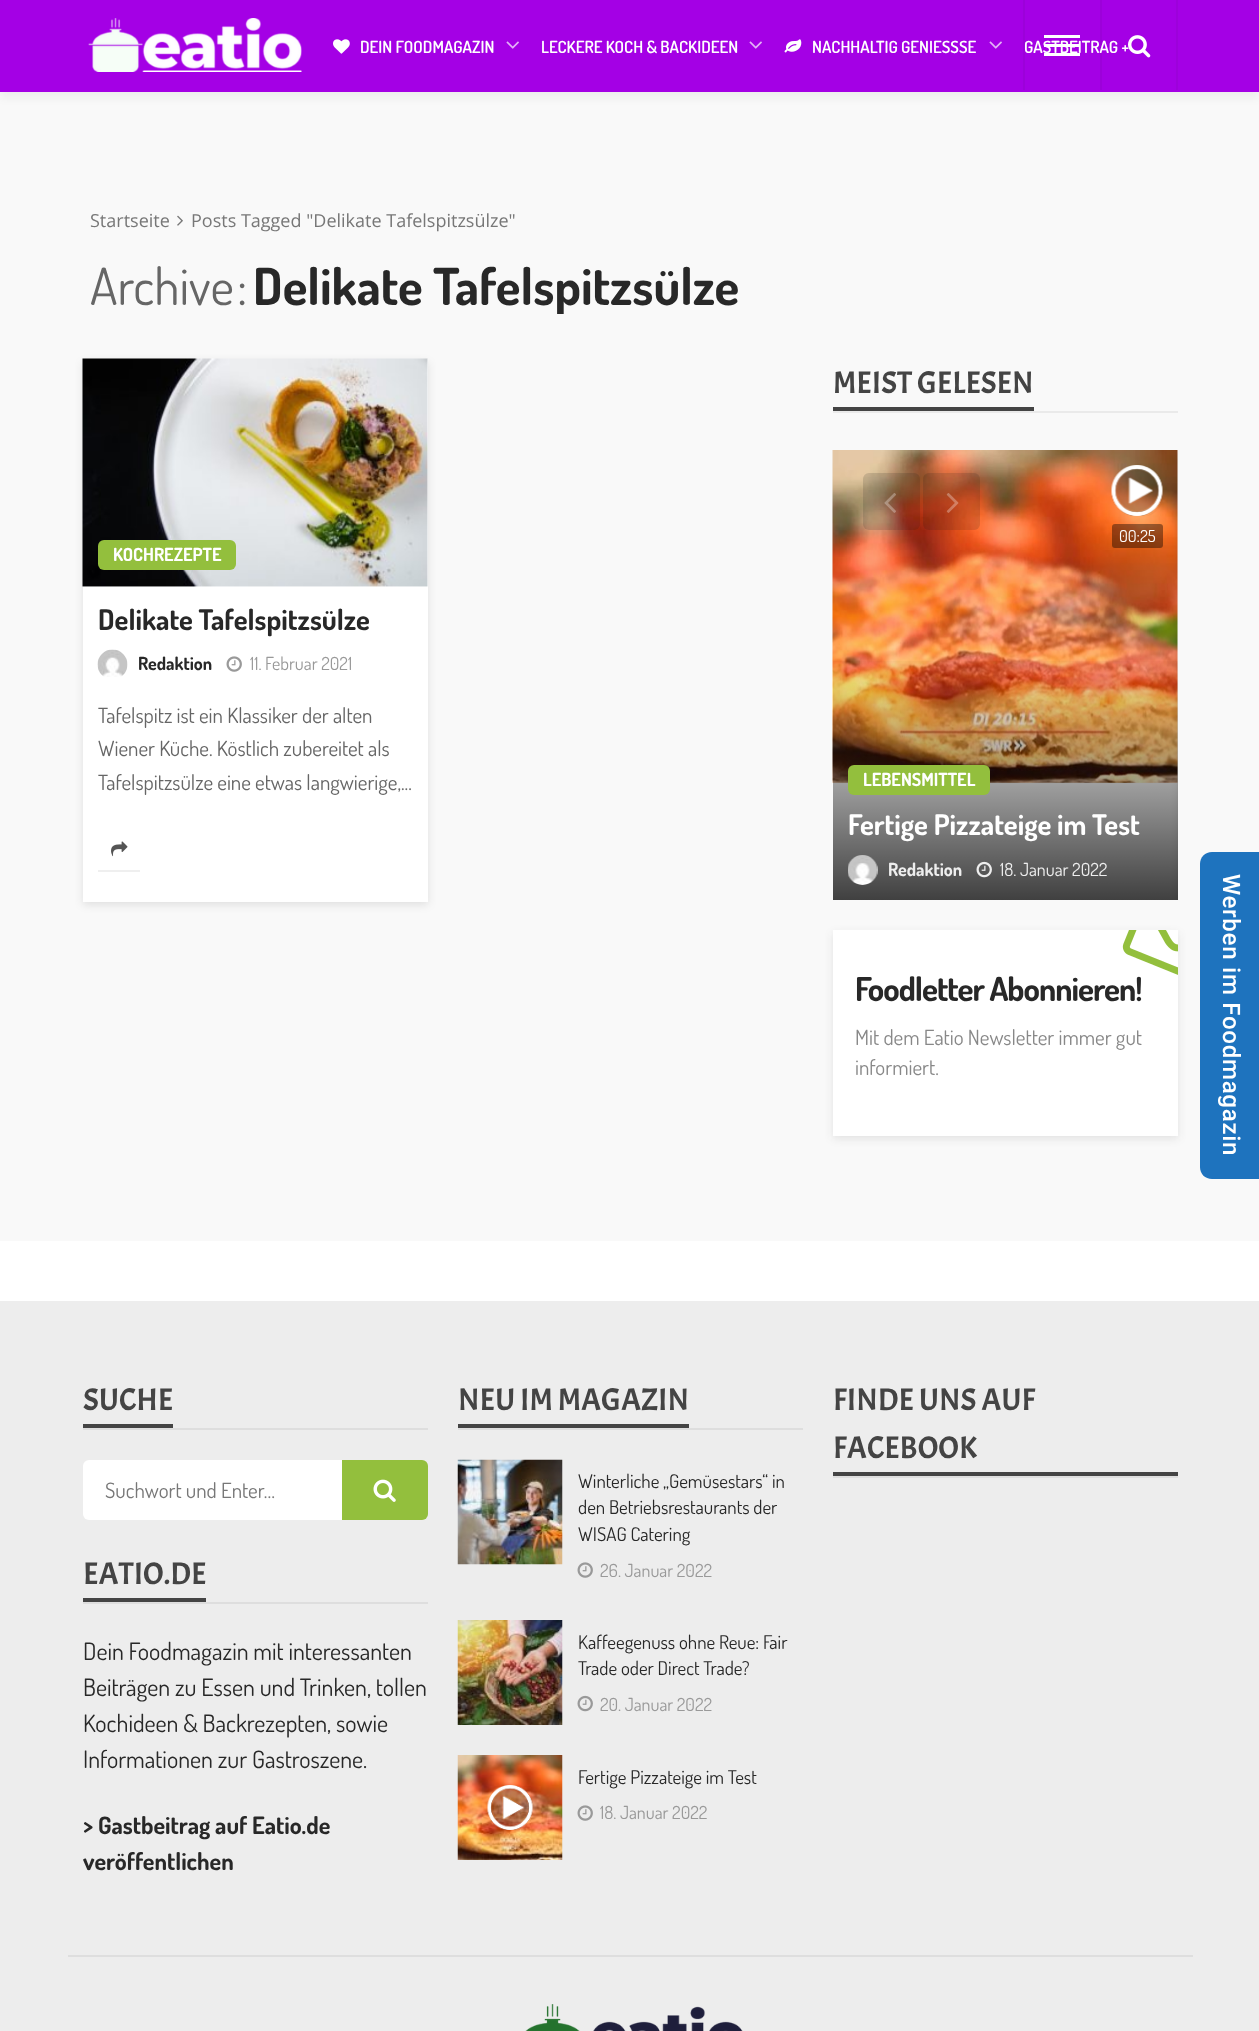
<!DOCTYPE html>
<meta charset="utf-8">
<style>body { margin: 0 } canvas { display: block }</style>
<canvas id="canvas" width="1259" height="2031"></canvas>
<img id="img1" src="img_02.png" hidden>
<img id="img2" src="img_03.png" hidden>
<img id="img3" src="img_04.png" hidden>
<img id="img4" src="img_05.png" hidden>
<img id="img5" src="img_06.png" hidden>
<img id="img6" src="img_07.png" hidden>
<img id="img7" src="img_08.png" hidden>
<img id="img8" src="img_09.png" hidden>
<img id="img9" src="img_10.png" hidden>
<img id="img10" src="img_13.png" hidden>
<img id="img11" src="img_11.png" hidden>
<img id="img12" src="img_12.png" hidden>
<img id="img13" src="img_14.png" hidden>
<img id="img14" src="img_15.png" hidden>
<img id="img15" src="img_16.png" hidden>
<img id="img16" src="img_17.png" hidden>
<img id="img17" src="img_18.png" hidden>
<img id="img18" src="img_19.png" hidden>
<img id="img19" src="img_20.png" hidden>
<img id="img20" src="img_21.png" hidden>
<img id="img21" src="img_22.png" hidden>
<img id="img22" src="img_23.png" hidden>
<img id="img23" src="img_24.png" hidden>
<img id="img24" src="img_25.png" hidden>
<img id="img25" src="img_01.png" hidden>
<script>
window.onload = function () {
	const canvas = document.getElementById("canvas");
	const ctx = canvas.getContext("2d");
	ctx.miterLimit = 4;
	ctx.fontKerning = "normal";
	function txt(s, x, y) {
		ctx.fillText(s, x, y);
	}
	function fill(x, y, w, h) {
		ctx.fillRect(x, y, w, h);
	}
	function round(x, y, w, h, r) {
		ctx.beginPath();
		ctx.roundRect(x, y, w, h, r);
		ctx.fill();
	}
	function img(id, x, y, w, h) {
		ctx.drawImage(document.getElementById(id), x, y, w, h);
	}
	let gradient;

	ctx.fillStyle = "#F9F9F9";
	fill(0, 0, 1259, 2031);
	ctx.fillStyle = "rgba(28, 28, 28, 0.05)";
	ctx.filter = "blur(4.5px)";
	ctx.beginPath();
	ctx.rect(0, 6, 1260, 92);
	ctx.fill();
	ctx.filter = "none";
	ctx.fillStyle = "#A400E5";
	fill(0, 0, 1259, 92);
	ctx.fillStyle = "#9D01DB";
	fill(1176, 0, 2, 90);
	ctx.fillStyle = "rgba(28, 28, 28, 0.05)";
	fill(1023, 0, 2, 90);
	fill(1100, 0, 2, 90);
	ctx.fillStyle = "#FFFFFF";
	fill(1044, 44, 36, 3);
	fill(1044, 35, 36, 3);
	fill(1044, 53, 36, 3);
	img("img1", 88, 18, 214, 54);
	img("img2", 333, 39, 17, 15);
	img("img3", 506, 41, 13, 8);
	img("img3", 749, 41, 13, 8);
	img("img4", 784, 39, 18, 14);
	img("img3", 989, 41, 13, 8);
	img("img5", 177, 215, 6, 11);
	ctx.fillStyle = "rgba(0, 0, 0, 0.1)";
	ctx.filter = "blur(4px)";
	ctx.beginPath();
	ctx.rect(83, 362, 345, 543);
	ctx.fill();
	ctx.filter = "none";
	ctx.fillStyle = "#FFFFFF";
	fill(83, 359, 345, 543);
	img("img6", 82, 358, 346, 229);
	ctx.fillStyle = "#93BF3D";
	round(98, 540, 138, 30, 6);
	img("img7", 97, 649, 31, 28);
	img("img8", 226, 656, 16, 16);
	ctx.fillStyle = "#EFEFEF";
	fill(98, 870, 42, 2);
	img("img9", 111, 841, 17, 16);
	ctx.fillStyle = "#EAEAEA";
	fill(833, 411, 345, 2);
	ctx.fillStyle = "#444444";
	fill(833, 407, 201, 4);
	ctx.fillStyle = "#FFFFFF";
	fill(833, 450, 345, 450);
	img("img10", 832, 450, 346, 333);
	ctx.fillStyle = "rgba(28, 28, 28, 0.15)";
	round(863, 473, 57, 57, 6);
	img("img11", 884, 493, 12, 20);
	round(923, 473, 57, 57, 6);
	img("img12", 946, 493, 13, 20);
	img("img13", 1111, 465, 52, 51);
	ctx.fillStyle = "rgba(0, 0, 0, 0.4)";
	round(1112, 524, 51, 24, 3);
	ctx.save();
	ctx.beginPath();
	ctx.rect(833, 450, 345, 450);
	ctx.clip();
	ctx.fillStyle = "rgba(0, 0, 0, 0.1)";
	ctx.filter = "blur(4px)";
	ctx.beginPath();
	ctx.rect(1178, 453, 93, 450);
	ctx.fill();
	ctx.filter = "none";
	ctx.restore();
	gradient = ctx.createLinearGradient(1005, 653, 1005, 900);
	gradient.addColorStop(0, "rgba(0, 0, 0, 0)");
	gradient.addColorStop(0.3, "rgba(0, 0, 0, 0.2)");
	gradient.addColorStop(1, "rgba(0, 0, 0, 0.75)");
	ctx.fillStyle = gradient;
	fill(833, 661, 345, 239);
	ctx.fillStyle = "#93BF3D";
	round(848, 765, 142, 30, 6);
	img("img14", 848, 855, 30, 30);
	img("img15", 976, 861, 16, 17);
	ctx.fillStyle = "rgba(28, 28, 28, 0.1)";
	ctx.filter = "blur(4px)";
	ctx.beginPath();
	ctx.rect(833, 933, 345, 206);
	ctx.fill();
	ctx.filter = "none";
	ctx.fillStyle = "#FFFFFF";
	fill(833, 930, 345, 206);
	img("img16", 1122, 930, 56, 45);
	fill(0, 1241, 1259, 60);
	ctx.fillStyle = "#EDEDED";
	fill(0, 1301, 1259, 730);
	ctx.fillStyle = "#DEDEDE";
	fill(83, 1428, 345, 2);
	ctx.fillStyle = "#444444";
	fill(83, 1424, 90, 4);
	ctx.fillStyle = "#FFFFFF";
	ctx.beginPath();
	ctx.roundRect(83, 1460, 259, 60, [6, 0, 0, 6]);
	ctx.fill();
	ctx.fillStyle = "#93BF3D";
	ctx.beginPath();
	ctx.roundRect(342, 1460, 86, 60, [0, 6, 6, 0]);
	ctx.fill();
	img("img17", 373, 1479, 23, 23);
	ctx.fillStyle = "#DEDEDE";
	fill(83, 1602, 345, 2);
	ctx.fillStyle = "#444444";
	fill(83, 1598, 123, 4);
	ctx.fillStyle = "#DEDEDE";
	fill(458, 1428, 345, 2);
	ctx.fillStyle = "#444444";
	fill(458, 1424, 231, 4);
	img("img18", 457, 1459, 106, 106);
	img("img19", 577, 1562, 16, 16);
	img("img20", 457, 1620, 106, 105);
	img("img21", 577, 1695, 16, 17);
	img("img22", 457, 1755, 106, 105);
	img("img23", 487, 1785, 46, 45);
	img("img19", 577, 1805, 16, 16);
	ctx.fillStyle = "#DEDEDE";
	fill(833, 1476, 345, 2);
	ctx.fillStyle = "#444444";
	fill(833, 1472, 345, 4);
	ctx.fillStyle = "#DEDEDE";
	fill(68, 1955, 1125, 2);
	img("img24", 525, 2004, 218, 27);
	ctx.fillStyle = "#1E73BE";
	ctx.beginPath();
	ctx.moveTo(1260, 852);
	ctx.lineTo(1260, 1179);
	ctx.lineTo(1212, 1179);
	ctx.bezierCurveTo(1205, 1179, 1200, 1174, 1200, 1167);
	ctx.lineTo(1200, 864);
	ctx.bezierCurveTo(1200, 857, 1205, 852, 1212, 852);
	ctx.closePath();
	ctx.fill();
	ctx.font = "600 16.75px Dosis";
	ctx.fillStyle = "#FFFFFF";
	txt("DEIN FOODMAGAZIN", 360, 53);
	txt("LECKERE KOCH & BACKIDEEN", 541, 53);
	txt("NACHHALTIG GENIESSSE", 812, 53);
	txt("GASTBEITRAG +", 1024, 53);
	img("img25", 1128, 35, 23, 23);
	ctx.font = "18px Open Sans";
	ctx.fillStyle = "#777777";
	txt("Startseite", 90, 227);
	txt("Posts Tagged \"Delikate Tafelspitzsülze\"", 191, 227);
	ctx.font = "51px Dosis";
	ctx.fillStyle = "#666666";
	txt("Archive", 90, 305);
	txt(":", 237, 305);
	ctx.save();
	ctx.beginPath();
	ctx.rect(0, 260, 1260, 54);
	ctx.clip();
	ctx.font = "bold 51px Dosis";
	ctx.fillStyle = "#282828";
	txt("Delikate Tafelspitzsülze", 253, 305);
	ctx.restore();
	ctx.font = "bold 18px Dosis";
	ctx.fillStyle = "#FFFFFF";
	txt("KOCHREZEPTE", 113, 561);
	ctx.font = "bold 28.5px Dosis";
	ctx.fillStyle = "#282828";
	txt("Delikate Tafelspitzsülze", 98, 630);
	ctx.font = "bold 18px Dosis";
	txt("Redaktion", 138, 670);
	ctx.font = "18px Dosis";
	ctx.fillStyle = "#999999";
	txt("11. Februar 2021", 250, 670);
	ctx.font = "21px Dosis";
	ctx.fillStyle = "#666666";
	txt("Tafelspitz ist ein Klassiker der alten", 98, 723);
	txt("Wiener Küche. Köstlich zubereitet als", 98, 756);
	txt("Tafelspitzsülze eine etwas langwierige,...", 98, 790);
	ctx.font = "31.25px Acme";
	ctx.fillStyle = "#444444";
	txt("MEIST GELESEN", 833, 393);
	ctx.font = "16.5px Dosis";
	ctx.fillStyle = "#FFFFFF";
	txt("00:25", 1119, 542);
	ctx.font = "bold 18px Dosis";
	txt("LEBENSMITTEL", 863, 786);
	ctx.font = "bold 28.5px Dosis";
	txt("Fertige Pizzateige im Test", 848, 835);
	ctx.font = "bold 18px Dosis";
	ctx.fillStyle = "#EEEEEE";
	txt("Redaktion", 888, 876);
	ctx.font = "18px Dosis";
	txt("18. Januar 2022", 1000, 876);
	ctx.letterSpacing = "-1px";
	ctx.font = "bold 33px Dosis";
	ctx.fillStyle = "#282828";
	txt("Foodletter Abonnieren!", 855, 1001);
	ctx.letterSpacing = "0px";
	ctx.font = "21px Dosis";
	ctx.fillStyle = "#888888";
	txt("Mit dem Eatio Newsletter immer gut", 855, 1045);
	txt("informiert.", 855, 1075);
	ctx.font = "31.25px Acme";
	ctx.fillStyle = "#444444";
	txt("SUCHE", 83, 1410);
	ctx.font = "21px Dosis";
	ctx.fillStyle = "#777777";
	txt("Suchwort und Enter…", 105, 1498);
	ctx.font = "31.25px Acme";
	ctx.fillStyle = "#444444";
	txt("EATIO.DE", 83, 1584);
	ctx.font = "24px Dosis";
	ctx.fillStyle = "#282828";
	txt("Dein Foodmagazin mit interessanten", 83, 1660);
	txt("Beiträgen zu Essen und Trinken, tollen", 83, 1696);
	txt("Kochideen & Backrezepten, sowie", 83, 1732);
	txt("Informationen zur Gastroszene.", 83, 1768);
	ctx.font = "bold 24px Dosis";
	txt("> Gastbeitrag auf Eatio.de", 83, 1834);
	txt("veröffentlichen", 83, 1870);
	ctx.font = "31.25px Acme";
	ctx.fillStyle = "#444444";
	txt("NEU IM MAGAZIN", 458, 1410);
	ctx.font = "18.9px Dosis";
	ctx.fillStyle = "#282828";
	txt("Winterliche „Gemüsestars“ in", 578, 1488);
	txt("den Betriebsrestaurants der", 578, 1514);
	txt("WISAG Catering", 578, 1541);
	ctx.font = "18px Dosis";
	ctx.fillStyle = "#999999";
	txt("26. Januar 2022", 600, 1577);
	ctx.font = "18.9px Dosis";
	ctx.fillStyle = "#282828";
	txt("Kaffeegenuss ohne Reue: Fair", 578, 1649);
	txt("Trade oder Direct Trade?", 578, 1675);
	ctx.font = "18px Dosis";
	ctx.fillStyle = "#999999";
	txt("20. Januar 2022", 600, 1711);
	ctx.font = "18.9px Dosis";
	ctx.fillStyle = "#282828";
	txt("Fertige Pizzateige im Test", 578, 1784);
	ctx.font = "18px Dosis";
	ctx.fillStyle = "#999999";
	txt("18. Januar 2022", 600, 1819);
	ctx.font = "31.25px Acme";
	ctx.fillStyle = "#444444";
	txt("FINDE UNS AUF", 833, 1410);
	txt("FACEBOOK", 833, 1458);
	ctx.letterSpacing = "0.75px";
	ctx.font = "500 24px Roboto";
	ctx.fillStyle = "#FFFFFF";
	ctx.save();
	ctx.translate(1223, 874);
	ctx.rotate(90 * Math.PI / 180);
	ctx.fillText("Werben im Foodmagazin", 0, 0);
	ctx.restore();
};
</script>
